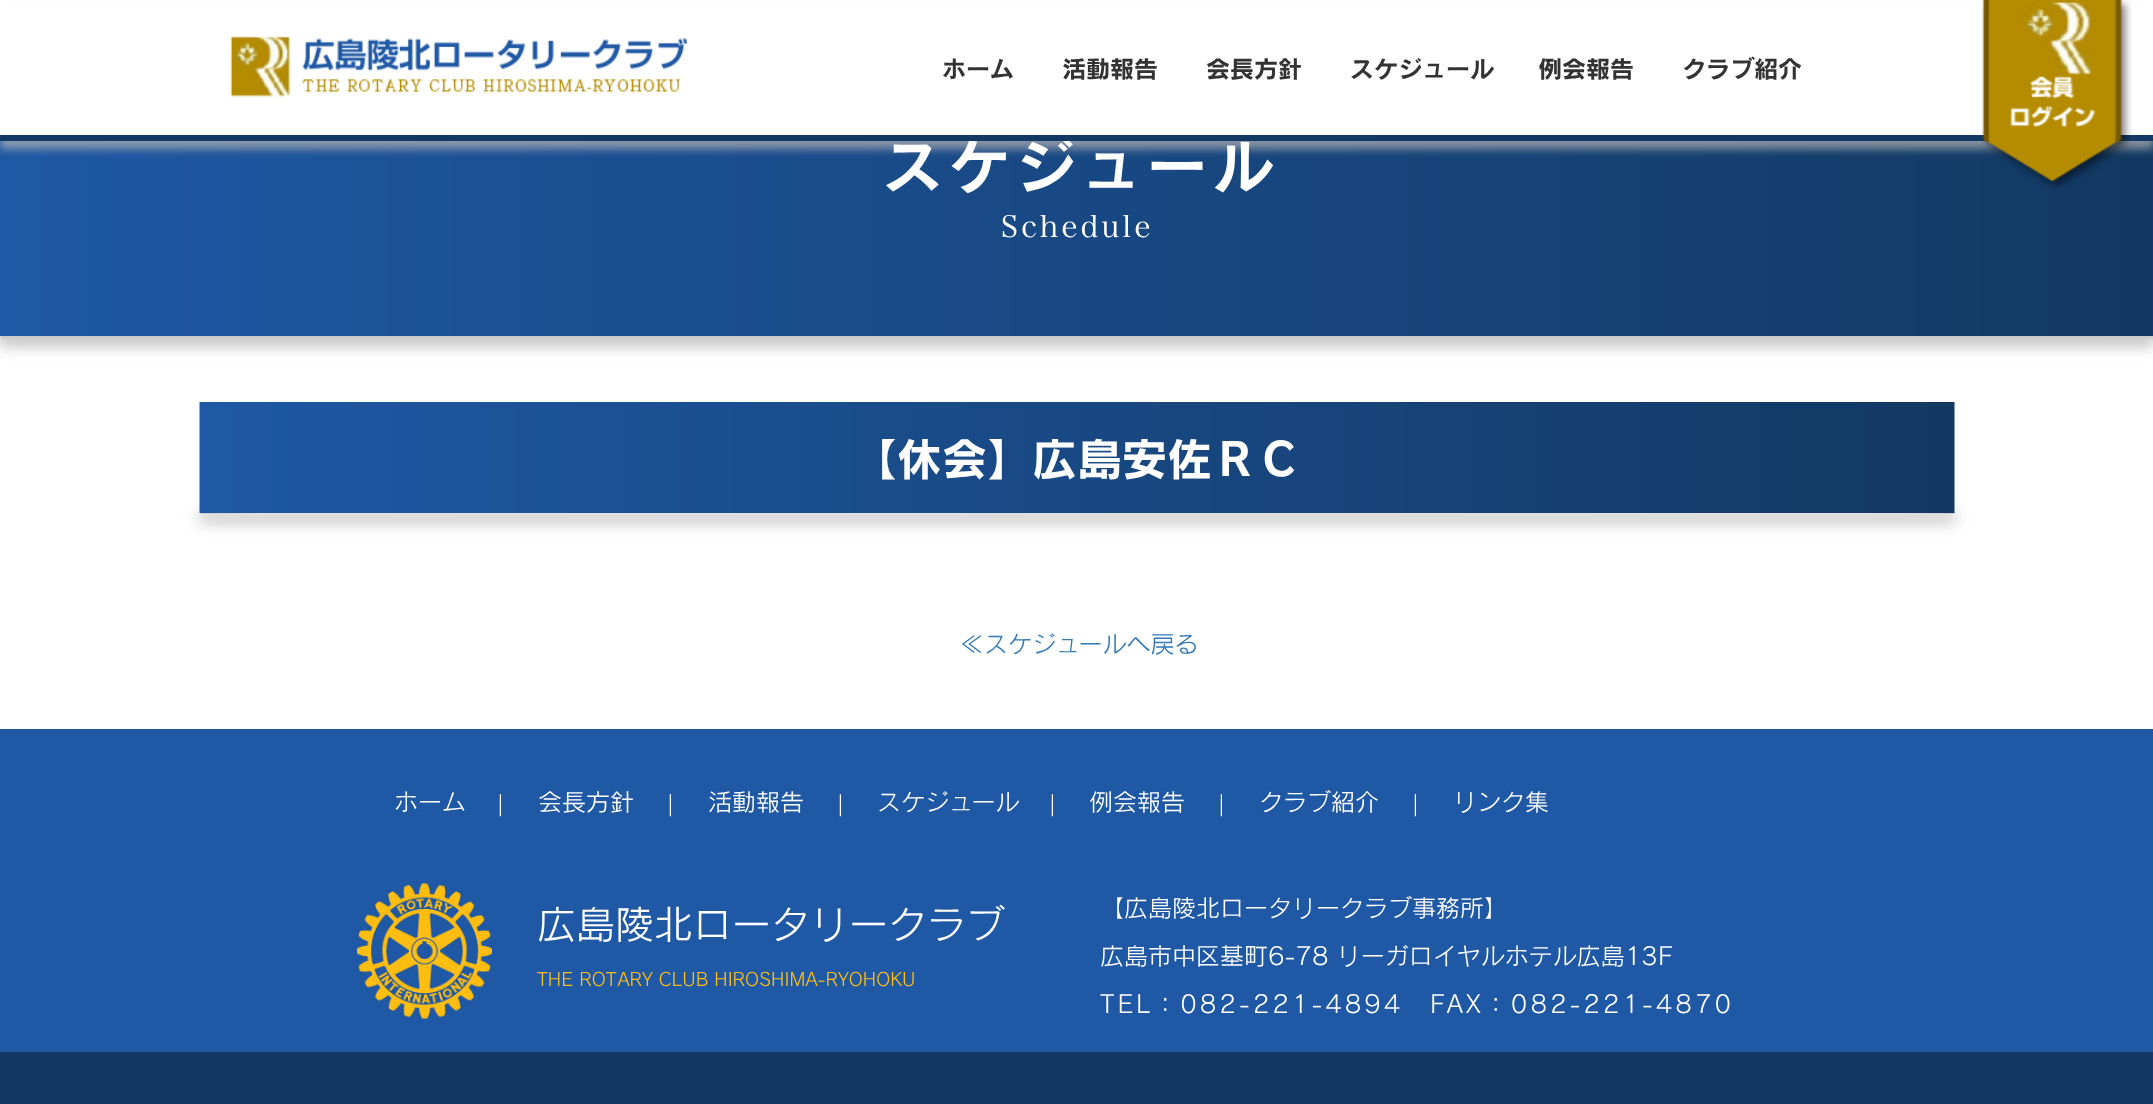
<!DOCTYPE html>
<meta charset="utf-8">
<style>body { margin: 0 } canvas { display: block }</style>
<canvas id="canvas" width="2153" height="1104"></canvas>
<img id="img1" src="img_03.png" hidden>
<img id="img2" src="img_01.png" hidden>
<img id="img3" src="img_04.png" hidden>
<img id="img4" src="img_05.png" hidden>
<img id="img5" src="img_02.png" hidden>
<script>
window.onload = function () {
	const canvas = document.getElementById("canvas");
	const ctx = canvas.getContext("2d");
	ctx.miterLimit = 4;
	ctx.fontKerning = "normal";
	function txt(s, x, y) {
		ctx.fillText(s, x, y);
	}
	function fill(x, y, w, h) {
		ctx.fillRect(x, y, w, h);
	}
	function img(id, x, y, w, h) {
		ctx.drawImage(document.getElementById(id), x, y, w, h);
	}

	ctx.fillStyle = "#FFFFFF";
	fill(0, 0, 2153, 1104);
	ctx.fillStyle = "#CCCCCC";
	ctx.filter = "blur(7.5px)";
	ctx.beginPath();
	ctx.rect(0, 297, 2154, 47);
	ctx.fill();
	ctx.filter = "none";
	ctx.beginPath();
	ctx.moveTo(0, 293);
	ctx.lineTo(2153, 256);
	ctx.lineTo(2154, 302);
	ctx.lineTo(1, 339);
	ctx.closePath();
	ctx.fill();
	ctx.filter = "blur(7.5px)";
	ctx.beginPath();
	ctx.rect(0, 297, 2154, 47);
	ctx.fill();
	ctx.filter = "none";
	ctx.beginPath();
	ctx.moveTo(1, 256);
	ctx.lineTo(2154, 293);
	ctx.lineTo(2153, 339);
	ctx.lineTo(0, 302);
	ctx.closePath();
	ctx.fill();
	img("img1", 0, 141, 2153, 195);
	ctx.fillStyle = "rgba(181, 181, 181, 0.7)";
	ctx.filter = "blur(4px)";
	ctx.beginPath();
	ctx.rect(0, 8, 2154, 141);
	ctx.fill();
	ctx.filter = "none";
	ctx.fillStyle = "#FFFFFF";
	fill(0, 1, 2153, 134);
	img("img2", 230, 36, 458, 62);
	ctx.fillStyle = "#CCCCCC";
	ctx.filter = "blur(7.5px)";
	ctx.beginPath();
	ctx.rect(200, 513, 1755, 8);
	ctx.fill();
	ctx.filter = "none";
	ctx.beginPath();
	ctx.moveTo(200, 506);
	ctx.lineTo(1954, 476);
	ctx.lineTo(1954, 483);
	ctx.lineTo(200, 514);
	ctx.closePath();
	ctx.fill();
	ctx.filter = "blur(7.5px)";
	ctx.beginPath();
	ctx.rect(200, 513, 1755, 8);
	ctx.fill();
	ctx.filter = "none";
	ctx.beginPath();
	ctx.moveTo(200, 476);
	ctx.lineTo(1954, 506);
	ctx.lineTo(1954, 514);
	ctx.lineTo(200, 483);
	ctx.closePath();
	ctx.fill();
	img("img3", 199, 402, 1756, 111);
	ctx.fillStyle = "#1F58A4";
	fill(0, 729, 2153, 323);
	img("img4", 357, 883, 135, 136);
	ctx.fillStyle = "#123963";
	fill(0, 1052, 2153, 52);
	ctx.font = "bold 24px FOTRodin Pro";
	ctx.fillStyle = "#333333";
	txt("ホーム", 942, 78);
	txt("活動報告", 1062, 78);
	txt("会長方針", 1206, 78);
	txt("スケジュール", 1350, 78);
	txt("例会報告", 1538, 78);
	txt("クラブ紹介", 1682, 78);
	ctx.letterSpacing = "6px";
	ctx.font = "bold 60px FOTRodin Pro";
	ctx.fillStyle = "#FFFFFF";
	txt("スケジュール", 883, 189);
	ctx.fillStyle = "#123963";
	fill(0, 135, 2153, 6);
	img("img5", 1981, 0, 151, 190);
	ctx.letterSpacing = "3px";
	ctx.font = "300 30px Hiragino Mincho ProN";
	ctx.fillStyle = "#FFFFFF";
	txt("Schedule", 1001, 238);
	ctx.letterSpacing = "0px";
	ctx.font = "bold 45px FOTRodin Pro";
	txt("【休会】広島安佐ＲＣ", 852, 476);
	ctx.font = "500 24px FOTRodin Pro";
	ctx.fillStyle = "#337AB7";
	txt("≪スケジュールへ戻る", 960, 653);
	ctx.fillStyle = "#FFFFFF";
	txt("ホーム", 394, 811);
	ctx.font = "24px Liberation Serif";
	txt("|", 498, 811);
	ctx.font = "500 24px FOTRodin Pro";
	txt("会長方針", 538, 811);
	ctx.font = "24px Liberation Serif";
	txt("|", 668, 811);
	ctx.font = "500 24px FOTRodin Pro";
	txt("活動報告", 708, 811);
	ctx.font = "24px Liberation Serif";
	txt("|", 838, 811);
	ctx.font = "500 24px FOTRodin Pro";
	txt("スケジュール", 877, 811);
	ctx.font = "24px Liberation Serif";
	txt("|", 1050, 811);
	ctx.font = "500 24px FOTRodin Pro";
	txt("例会報告", 1089, 811);
	ctx.font = "24px Liberation Serif";
	txt("|", 1219, 811);
	ctx.font = "500 24px FOTRodin Pro";
	txt("クラブ紹介", 1259, 811);
	ctx.font = "24px Liberation Serif";
	txt("|", 1413, 811);
	ctx.font = "500 24px FOTRodin Pro";
	txt("リンク集", 1453, 811);
	ctx.font = "500 39px FOTRodin Pro";
	txt("広島陵北ロータリークラブ", 537, 939);
	ctx.font = "500 18px FOTRodin Pro";
	ctx.fillStyle = "#FFBD11";
	txt("THE ROTARY CLUB HIROSHIMA-RYOHOKU", 537, 986);
	ctx.font = "500 24px FOTRodin Pro";
	ctx.fillStyle = "#FFFFFF";
	txt("【広島陵北ロータリークラブ事務所】", 1100, 917);
	txt("広島市中区基町6-78 リーガロイヤルホテル広島13F", 1100, 965);
	ctx.letterSpacing = "3px";
	txt("TEL：082-221-4894", 1100, 1013);
	txt("FAX：082-221-4870", 1430, 1013);
};
</script>
